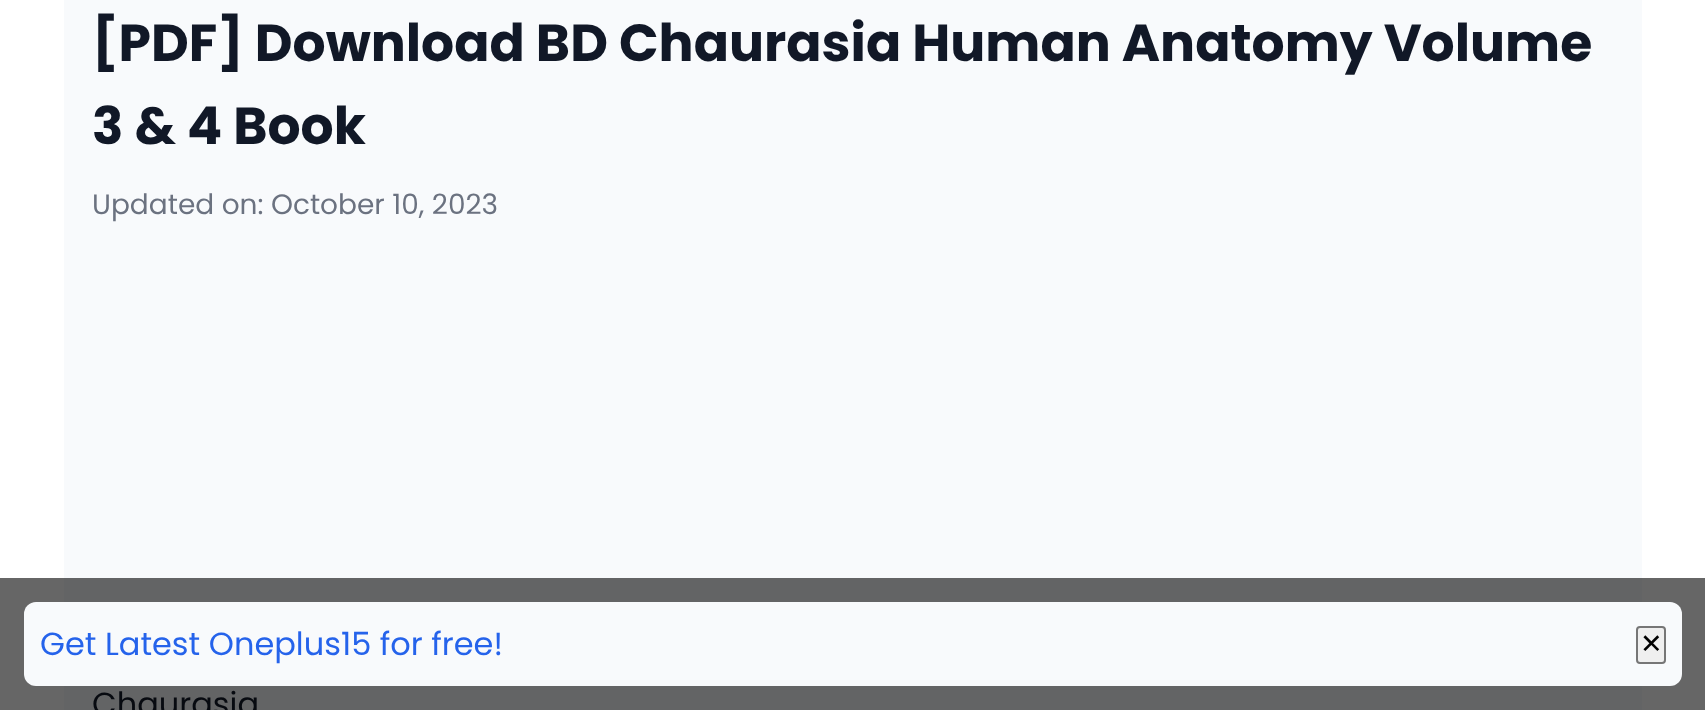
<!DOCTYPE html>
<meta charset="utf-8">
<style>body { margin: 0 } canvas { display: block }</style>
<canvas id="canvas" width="1705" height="710"></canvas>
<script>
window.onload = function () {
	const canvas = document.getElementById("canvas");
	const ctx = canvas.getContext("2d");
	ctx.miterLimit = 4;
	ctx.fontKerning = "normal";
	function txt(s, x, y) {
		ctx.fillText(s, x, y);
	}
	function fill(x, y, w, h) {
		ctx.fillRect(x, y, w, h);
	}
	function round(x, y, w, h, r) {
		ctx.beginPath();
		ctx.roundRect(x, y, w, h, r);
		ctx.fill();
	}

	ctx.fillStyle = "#FFFFFF";
	fill(0, 0, 1705, 710);
	ctx.fillStyle = "#666666";
	fill(0, 578, 1705, 132);
	ctx.fillStyle = "#F8FAFC";
	fill(64, 0, 1578, 578);
	ctx.fillStyle = "#636465";
	fill(64, 578, 1578, 132);
	ctx.fillStyle = "#F8FAFC";
	round(24, 602, 1658, 84, 12);
	ctx.fillStyle = "#EFEFEF";
	ctx.beginPath();
	ctx.roundRect(1637, 627, 28, 36, 3);
	ctx.fill();
	ctx.strokeStyle = "#767676";
	ctx.lineWidth = 2;
	ctx.stroke();
	ctx.font = "bold 52px Poppins";
	ctx.fillStyle = "#111827";
	txt("[PDF] Download BD Chaurasia Human Anatomy Volume", 92, 61);
	txt("3 & 4 Book", 92, 144);
	ctx.font = "28px Poppins";
	ctx.fillStyle = "#6B7280";
	txt("Updated on: October 10, 2023", 92, 214);
	ctx.font = "32px Poppins";
	ctx.fillStyle = "#070A10";
	txt("Chaurasia", 92, 715);
	ctx.fillStyle = "#2563EB";
	txt("Get Latest Oneplus15 for free!", 40, 655);
	ctx.font = "27px DejaVu Sans";
	ctx.fillStyle = "#000000";
	txt("✕", 1640, 653);
};
</script>
